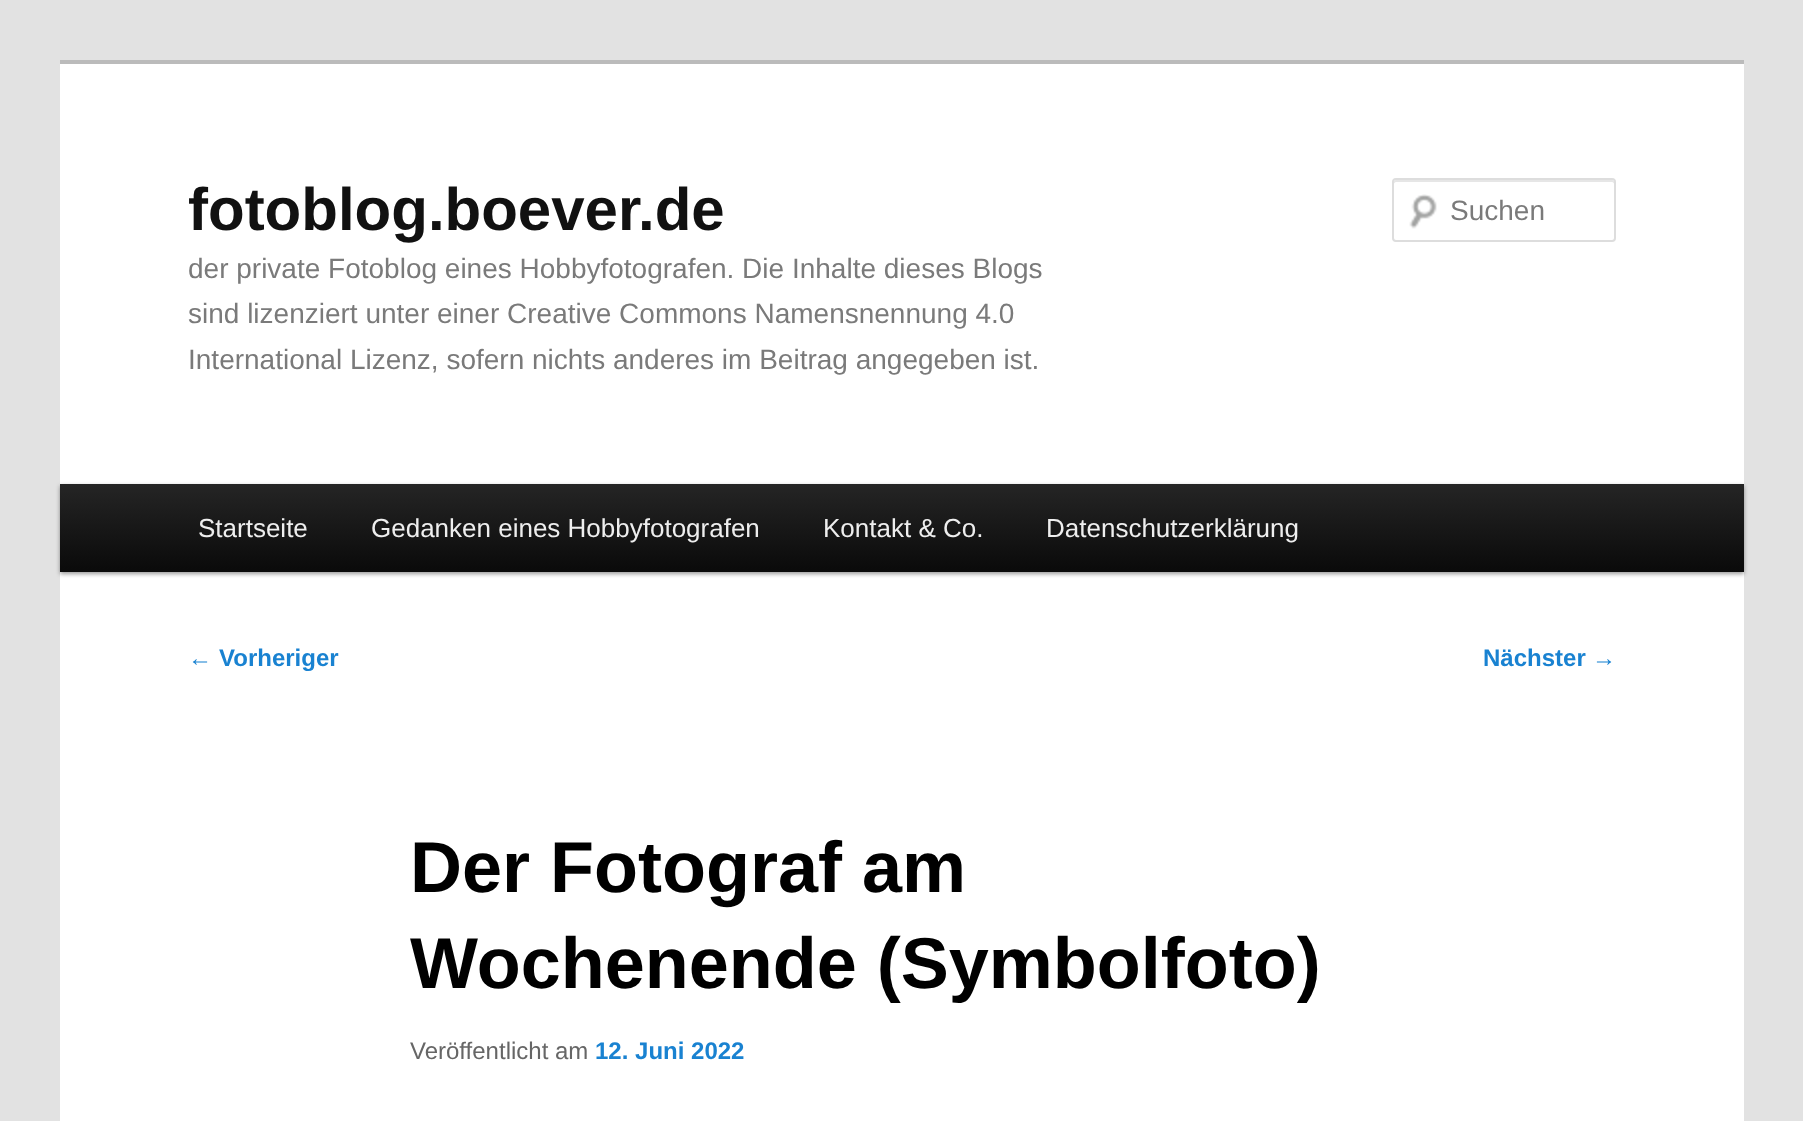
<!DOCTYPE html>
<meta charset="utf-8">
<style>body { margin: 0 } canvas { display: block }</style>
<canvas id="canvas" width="1803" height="1121"></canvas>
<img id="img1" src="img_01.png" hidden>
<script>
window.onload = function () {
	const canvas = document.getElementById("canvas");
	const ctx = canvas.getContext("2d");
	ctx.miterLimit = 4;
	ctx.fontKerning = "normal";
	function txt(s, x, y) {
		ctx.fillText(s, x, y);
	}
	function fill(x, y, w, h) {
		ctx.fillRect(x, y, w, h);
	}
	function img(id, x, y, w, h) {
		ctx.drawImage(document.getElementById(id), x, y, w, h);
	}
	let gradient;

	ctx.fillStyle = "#E2E2E2";
	fill(0, 0, 1803, 1121);
	ctx.fillStyle = "#FFFFFF";
	fill(60, 64, 1684, 1057);
	ctx.fillStyle = "#BBBBBB";
	fill(60, 60, 1684, 4);
	img("img1", 1409, 194, 28, 35);
	ctx.fillStyle = "#E6E6E6";
	ctx.beginPath();
	ctx.moveTo(1396, 182);
	ctx.lineTo(1612, 182);
	ctx.bezierCurveTo(1613, 182, 1614, 183, 1614, 184);
	ctx.lineTo(1614, 182);
	ctx.bezierCurveTo(1614, 181, 1613, 180, 1612, 180);
	ctx.lineTo(1396, 180);
	ctx.bezierCurveTo(1395, 180, 1394, 181, 1394, 182);
	ctx.lineTo(1394, 184);
	ctx.bezierCurveTo(1394, 183, 1395, 182, 1396, 182);
	ctx.closePath();
	ctx.fill();
	ctx.beginPath();
	ctx.roundRect(1393, 179, 222, 62, 3);
	ctx.strokeStyle = "#DDDDDD";
	ctx.lineWidth = 2;
	ctx.stroke();
	ctx.fillStyle = "rgba(0, 0, 0, 0.4)";
	ctx.filter = "blur(2px)";
	ctx.beginPath();
	ctx.rect(60, 486, 1684, 88);
	ctx.fill();
	ctx.filter = "none";
	gradient = ctx.createLinearGradient(902, 484, 902, 572);
	gradient.addColorStop(0, "#252525");
	gradient.addColorStop(1, "#0A0A0A");
	ctx.fillStyle = gradient;
	fill(60, 484, 1684, 88);
	ctx.font = "bold 60px Liberation Sans";
	ctx.fillStyle = "#111111";
	txt("fotoblog.boever.de", 188, 230);
	ctx.font = "28px Liberation Sans";
	ctx.fillStyle = "#7A7A7A";
	txt("der private Fotoblog eines Hobbyfotografen. Die Inhalte dieses Blogs", 188, 278);
	txt("sind lizenziert unter einer Creative Commons Namensnennung 4.0", 188, 323);
	txt("International Lizenz, sofern nichts anderes im Beitrag angegeben ist.", 188, 369);
	txt("Suchen", 1450, 220);
	ctx.font = "26px Liberation Sans";
	ctx.fillStyle = "#EEEEEE";
	txt("Startseite", 198, 537);
	txt("Gedanken eines Hobbyfotografen", 371, 537);
	txt("Kontakt & Co.", 823, 537);
	txt("Datenschutzerklärung", 1046, 537);
	ctx.font = "24px Liberation Sans";
	ctx.fillStyle = "#1982D1";
	txt("←", 188, 666);
	ctx.font = "bold 24px Liberation Sans";
	txt("Vorheriger", 219, 666);
	txt("Nächster", 1483, 666);
	ctx.font = "24px Liberation Sans";
	txt("→", 1592, 666);
	ctx.font = "bold 72px Liberation Sans";
	ctx.fillStyle = "#000000";
	txt("Der Fotograf am", 410, 892);
	txt("Wochenende (Symbolfoto)", 410, 988);
	ctx.font = "24px Liberation Sans";
	ctx.fillStyle = "#666666";
	txt("Veröffentlicht am", 410, 1059);
	ctx.font = "bold 24px Liberation Sans";
	ctx.fillStyle = "#1982D1";
	txt("12. Juni 2022", 595, 1059);
};
</script>
